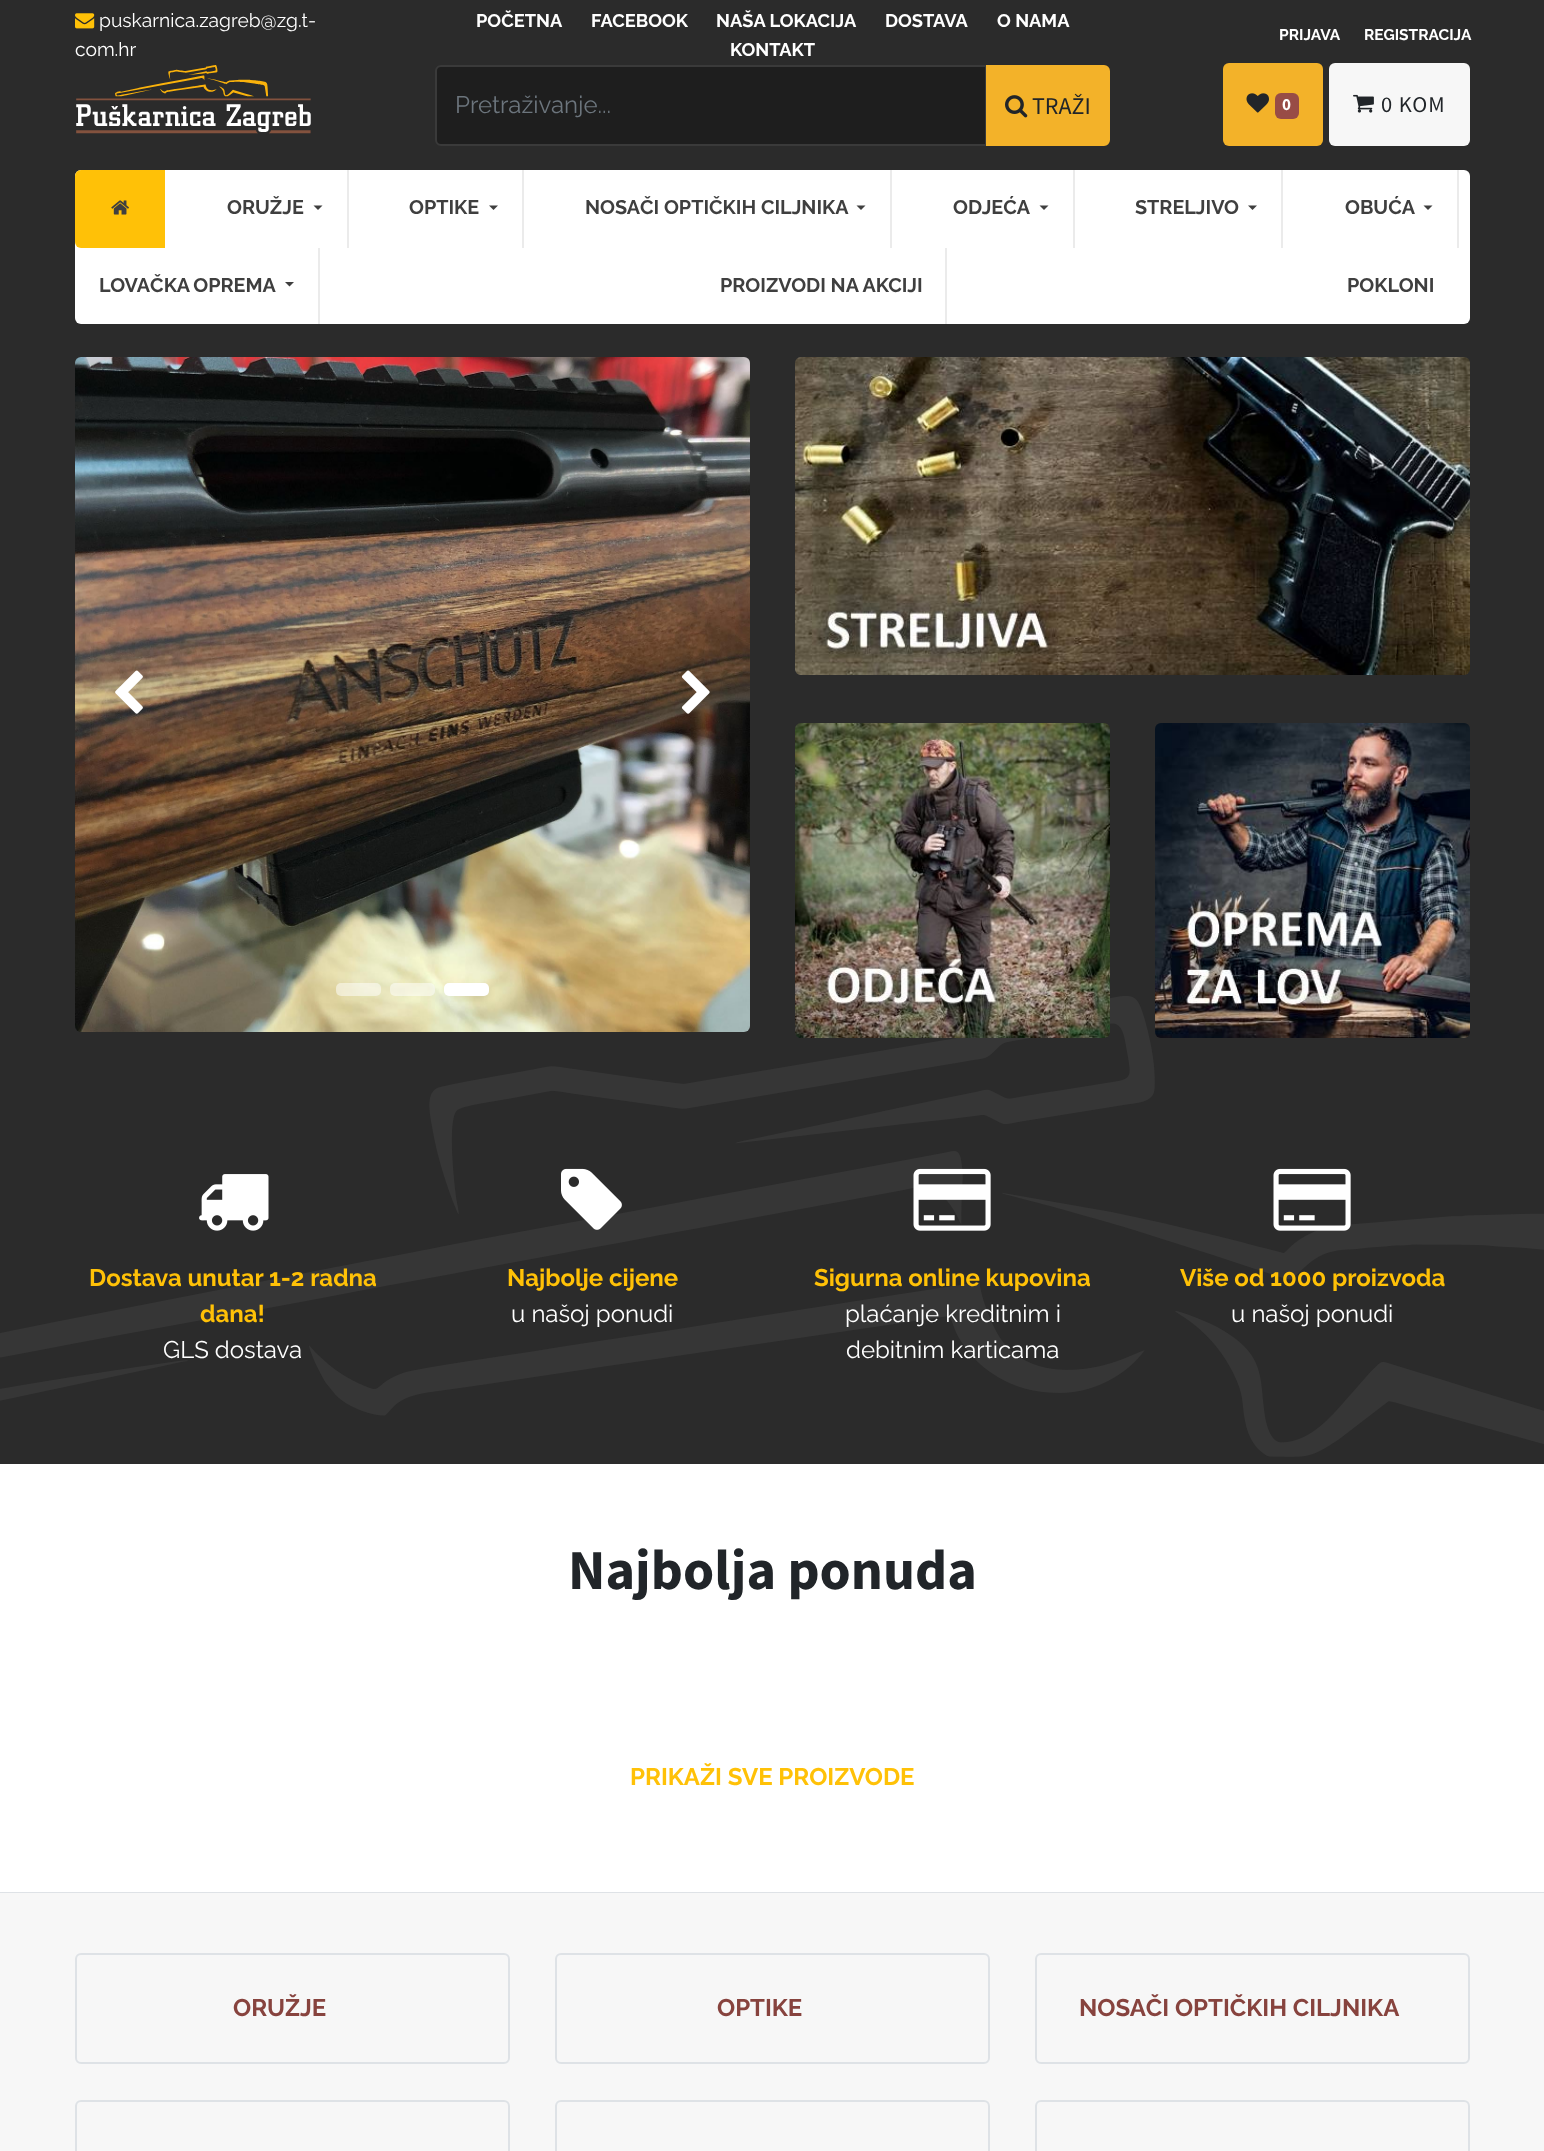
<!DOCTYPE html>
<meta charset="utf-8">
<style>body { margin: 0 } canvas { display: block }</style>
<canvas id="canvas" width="1544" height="2151"></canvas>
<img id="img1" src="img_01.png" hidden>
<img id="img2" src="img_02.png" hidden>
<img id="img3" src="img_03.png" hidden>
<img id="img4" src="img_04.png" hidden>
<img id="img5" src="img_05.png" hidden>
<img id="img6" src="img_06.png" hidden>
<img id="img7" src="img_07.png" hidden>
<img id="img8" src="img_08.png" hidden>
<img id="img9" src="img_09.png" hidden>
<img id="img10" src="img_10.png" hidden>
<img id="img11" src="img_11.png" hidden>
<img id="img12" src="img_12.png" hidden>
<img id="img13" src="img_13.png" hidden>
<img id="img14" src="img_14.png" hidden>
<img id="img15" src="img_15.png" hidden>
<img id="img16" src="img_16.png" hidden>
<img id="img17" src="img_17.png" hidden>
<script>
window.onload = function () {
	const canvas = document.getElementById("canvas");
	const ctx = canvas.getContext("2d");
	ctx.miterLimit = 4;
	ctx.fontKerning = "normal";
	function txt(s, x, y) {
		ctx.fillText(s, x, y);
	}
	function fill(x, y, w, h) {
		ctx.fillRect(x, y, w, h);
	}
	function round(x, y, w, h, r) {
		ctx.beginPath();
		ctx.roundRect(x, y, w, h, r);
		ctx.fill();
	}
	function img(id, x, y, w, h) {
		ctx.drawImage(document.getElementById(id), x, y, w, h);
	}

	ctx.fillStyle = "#FFFFFF";
	fill(0, 0, 1544, 2151);
	ctx.fillStyle = "#2B2B2B";
	fill(0, 0, 1544, 1464);
	img("img1", 75, 13, 20, 16);
	img("img2", 76, 65, 235, 69);
	ctx.fillStyle = "#1E1E1E";
	ctx.beginPath();
	ctx.roundRect(436, 66, 550, 79, [5, 0, 0, 5]);
	ctx.fill();
	ctx.strokeStyle = "#3A3A3A";
	ctx.lineWidth = 2;
	ctx.stroke();
	ctx.fillStyle = "#F3B229";
	ctx.beginPath();
	ctx.roundRect(987, 66, 122, 79, [0, 5, 5, 0]);
	ctx.fill();
	ctx.strokeStyle = "#F3B229";
	ctx.stroke();
	img("img3", 1005, 95, 23, 23);
	round(1223, 63, 100, 83, 6);
	img("img4", 1246, 93, 23, 20);
	ctx.fillStyle = "#984C46";
	round(1275, 93, 24, 26, 6);
	ctx.fillStyle = "#F7F7F7";
	round(1329, 63, 141, 83, 6);
	img("img5", 1353, 94, 21, 19);
	ctx.fillStyle = "#FFFFFF";
	round(75, 170, 1395, 154, 6);
	ctx.fillStyle = "#FFC107";
	ctx.beginPath();
	ctx.roundRect(75, 170, 90, 78, [6, 0, 0, 6]);
	ctx.fill();
	img("img6", 111, 200, 18, 15);
	ctx.fillStyle = "#EBEBEB";
	fill(347, 170, 2, 78);
	ctx.fillStyle = "#3F3F3F";
	ctx.beginPath();
	ctx.moveTo(313.5, 205.5);
	ctx.lineTo(322.5, 205.5);
	ctx.lineTo(318, 210);
	ctx.closePath();
	ctx.fill();
	ctx.fillStyle = "#EBEBEB";
	fill(522, 170, 2, 78);
	ctx.fillStyle = "#3F3F3F";
	ctx.beginPath();
	ctx.moveTo(489, 205.5);
	ctx.lineTo(498, 205.5);
	ctx.lineTo(493.5, 210);
	ctx.closePath();
	ctx.fill();
	ctx.fillStyle = "#EBEBEB";
	fill(890, 170, 2, 78);
	ctx.fillStyle = "#3F3F3F";
	ctx.beginPath();
	ctx.moveTo(856.5, 205.5);
	ctx.lineTo(865.5, 205.5);
	ctx.lineTo(861, 210);
	ctx.closePath();
	ctx.fill();
	ctx.fillStyle = "#EBEBEB";
	fill(1073, 170, 2, 78);
	ctx.fillStyle = "#3F3F3F";
	ctx.beginPath();
	ctx.moveTo(1039.5, 205.5);
	ctx.lineTo(1048.5, 205.5);
	ctx.lineTo(1044, 210);
	ctx.closePath();
	ctx.fill();
	ctx.fillStyle = "#EBEBEB";
	fill(1281, 170, 2, 78);
	ctx.fillStyle = "#3F3F3F";
	ctx.beginPath();
	ctx.moveTo(1248, 205.5);
	ctx.lineTo(1257, 205.5);
	ctx.lineTo(1252.5, 210);
	ctx.closePath();
	ctx.fill();
	ctx.fillStyle = "#EBEBEB";
	fill(1457, 170, 2, 78);
	ctx.fillStyle = "#3F3F3F";
	ctx.beginPath();
	ctx.moveTo(1423.5, 205.5);
	ctx.lineTo(1432.5, 205.5);
	ctx.lineTo(1428, 210);
	ctx.closePath();
	ctx.fill();
	ctx.fillStyle = "#EBEBEB";
	fill(318, 248, 2, 76);
	ctx.fillStyle = "#3F3F3F";
	ctx.beginPath();
	ctx.moveTo(285, 282);
	ctx.lineTo(294, 282);
	ctx.lineTo(289.5, 286.5);
	ctx.closePath();
	ctx.fill();
	ctx.fillStyle = "#EBEBEB";
	fill(945, 248, 2, 76);
	img("img7", 0, 996, 1544, 461);
	img("img8", 75, 357, 675, 675);
	img("img9", 115, 670, 28, 44);
	img("img10", 681, 670, 29, 44);
	ctx.fillStyle = "rgba(255, 255, 255, 0.5)";
	round(336, 983, 45, 13, 5);
	ctx.fillStyle = "rgba(0, 0, 0, 0.07)";
	ctx.filter = "blur(3px)";
	ctx.beginPath();
	ctx.roundRect(444, 986, 45, 13, 5);
	ctx.fill();
	ctx.filter = "none";
	ctx.fillStyle = "rgba(255, 255, 255, 0.5)";
	round(390, 983, 45, 13, 5);
	ctx.fillStyle = "#FFFFFF";
	round(444, 983, 45, 13, 5);
	img("img11", 795, 357, 675, 318);
	img("img12", 795, 723, 315, 315);
	img("img13", 1155, 723, 315, 315);
	img("img14", 199, 1174, 70, 57);
	img("img15", 561, 1168, 61, 62);
	img("img16", 913, 1168, 78, 63);
	img("img17", 1273, 1168, 78, 63);
	ctx.fillStyle = "#DEE2E6";
	fill(0, 1892, 1544, 1);
	ctx.fillStyle = "#F7F7F7";
	fill(0, 1893, 1544, 258);
	ctx.beginPath();
	ctx.roundRect(76, 1954, 433, 109, 5);
	ctx.strokeStyle = "#DEE2E6";
	ctx.stroke();
	ctx.beginPath();
	ctx.roundRect(556, 1954, 433, 109, 5);
	ctx.stroke();
	ctx.beginPath();
	ctx.roundRect(1036, 1954, 433, 109, 5);
	ctx.stroke();
	ctx.beginPath();
	ctx.roundRect(76, 2101, 433, 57, 5);
	ctx.stroke();
	ctx.beginPath();
	ctx.roundRect(556, 2101, 433, 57, 5);
	ctx.stroke();
	ctx.beginPath();
	ctx.roundRect(1036, 2101, 433, 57, 5);
	ctx.stroke();
	ctx.font = "19.25px Raleway";
	ctx.fillStyle = "#FFFFFF";
	txt("puskarnica.zagreb@zg.t-", 99, 27);
	txt("com.hr", 75, 56);
	ctx.font = "bold 18.25px Raleway";
	txt("POČETNA", 476, 27);
	txt("FACEBOOK", 591, 27);
	txt("NAŠA LOKACIJA", 716, 27);
	txt("DOSTAVA", 885, 27);
	txt("O NAMA", 997, 27);
	txt("KONTAKT", 730, 56);
	ctx.font = "bold 15.5px Raleway";
	txt("PRIJAVA", 1279, 40);
	txt("REGISTRACIJA", 1364, 40);
	ctx.font = "24px Raleway";
	ctx.fillStyle = "#6C757D";
	txt("Pretraživanje...", 455, 113);
	ctx.font = "24px Source Sans Pro";
	ctx.fillStyle = "#212529";
	txt("TRAŽI", 1032, 114);
	ctx.letterSpacing = "1px";
	ctx.font = "bold 17px Source Sans Pro";
	ctx.fillStyle = "#FFFFFF";
	txt("0", 1282, 110);
	ctx.font = "22.5px Source Sans Pro";
	ctx.fillStyle = "#212529";
	txt("0 KOM", 1381, 112);
	ctx.letterSpacing = "0px";
	ctx.font = "bold 19.75px Raleway";
	ctx.fillStyle = "#3F3F3F";
	txt("ORUŽJE", 227, 214);
	txt("OPTIKE", 409, 214);
	txt("NOSAČI OPTIČKIH CILJNIKA", 585, 214);
	txt("ODJEĆA", 953, 214);
	txt("STRELJIVO", 1135, 214);
	txt("OBUĆA", 1345, 214);
	ctx.wordSpacing = "-1px";
	txt("LOVAČKA OPREMA", 99, 292);
	ctx.wordSpacing = "0px";
	txt("PROIZVODI NA AKCIJI", 720, 292);
	txt("POKLONI", 1347, 292);
	ctx.font = "bold 24px Raleway";
	ctx.fillStyle = "#FFC107";
	txt("Dostava unutar 1-2 radna", 89, 1286);
	txt("dana!", 200, 1322);
	ctx.font = "24px Raleway";
	ctx.fillStyle = "#FFFFFF";
	txt("GLS dostava", 163, 1358);
	ctx.font = "bold 24px Raleway";
	ctx.fillStyle = "#FFC107";
	txt("Najbolje cijene", 507, 1286);
	ctx.font = "24px Raleway";
	ctx.fillStyle = "#FFFFFF";
	txt("u našoj ponudi", 511, 1322);
	ctx.font = "bold 24px Raleway";
	ctx.fillStyle = "#FFC107";
	txt("Sigurna online kupovina", 814, 1286);
	ctx.font = "24px Raleway";
	ctx.fillStyle = "#FFFFFF";
	txt("plaćanje kreditnim i", 845, 1322);
	txt("debitnim karticama", 846, 1358);
	ctx.font = "bold 24px Raleway";
	ctx.fillStyle = "#FFC107";
	txt("Više od 1000 proizvoda", 1180, 1286);
	ctx.font = "24px Raleway";
	ctx.fillStyle = "#FFFFFF";
	txt("u našoj ponudi", 1231, 1322);
	ctx.font = "bold 56.25px Source Sans Pro";
	ctx.fillStyle = "#212529";
	txt("Najbolja ponuda", 568, 1589);
	ctx.font = "bold 24px Raleway";
	ctx.fillStyle = "#FFC107";
	txt("PRIKAŽI SVE PROIZVODE", 630, 1785);
	ctx.fillStyle = "#87433E";
	txt("ORUŽJE", 233, 2016);
	txt("OPTIKE", 717, 2016);
	txt("NOSAČI OPTIČKIH CILJNIKA", 1079, 2016);
};
</script>
